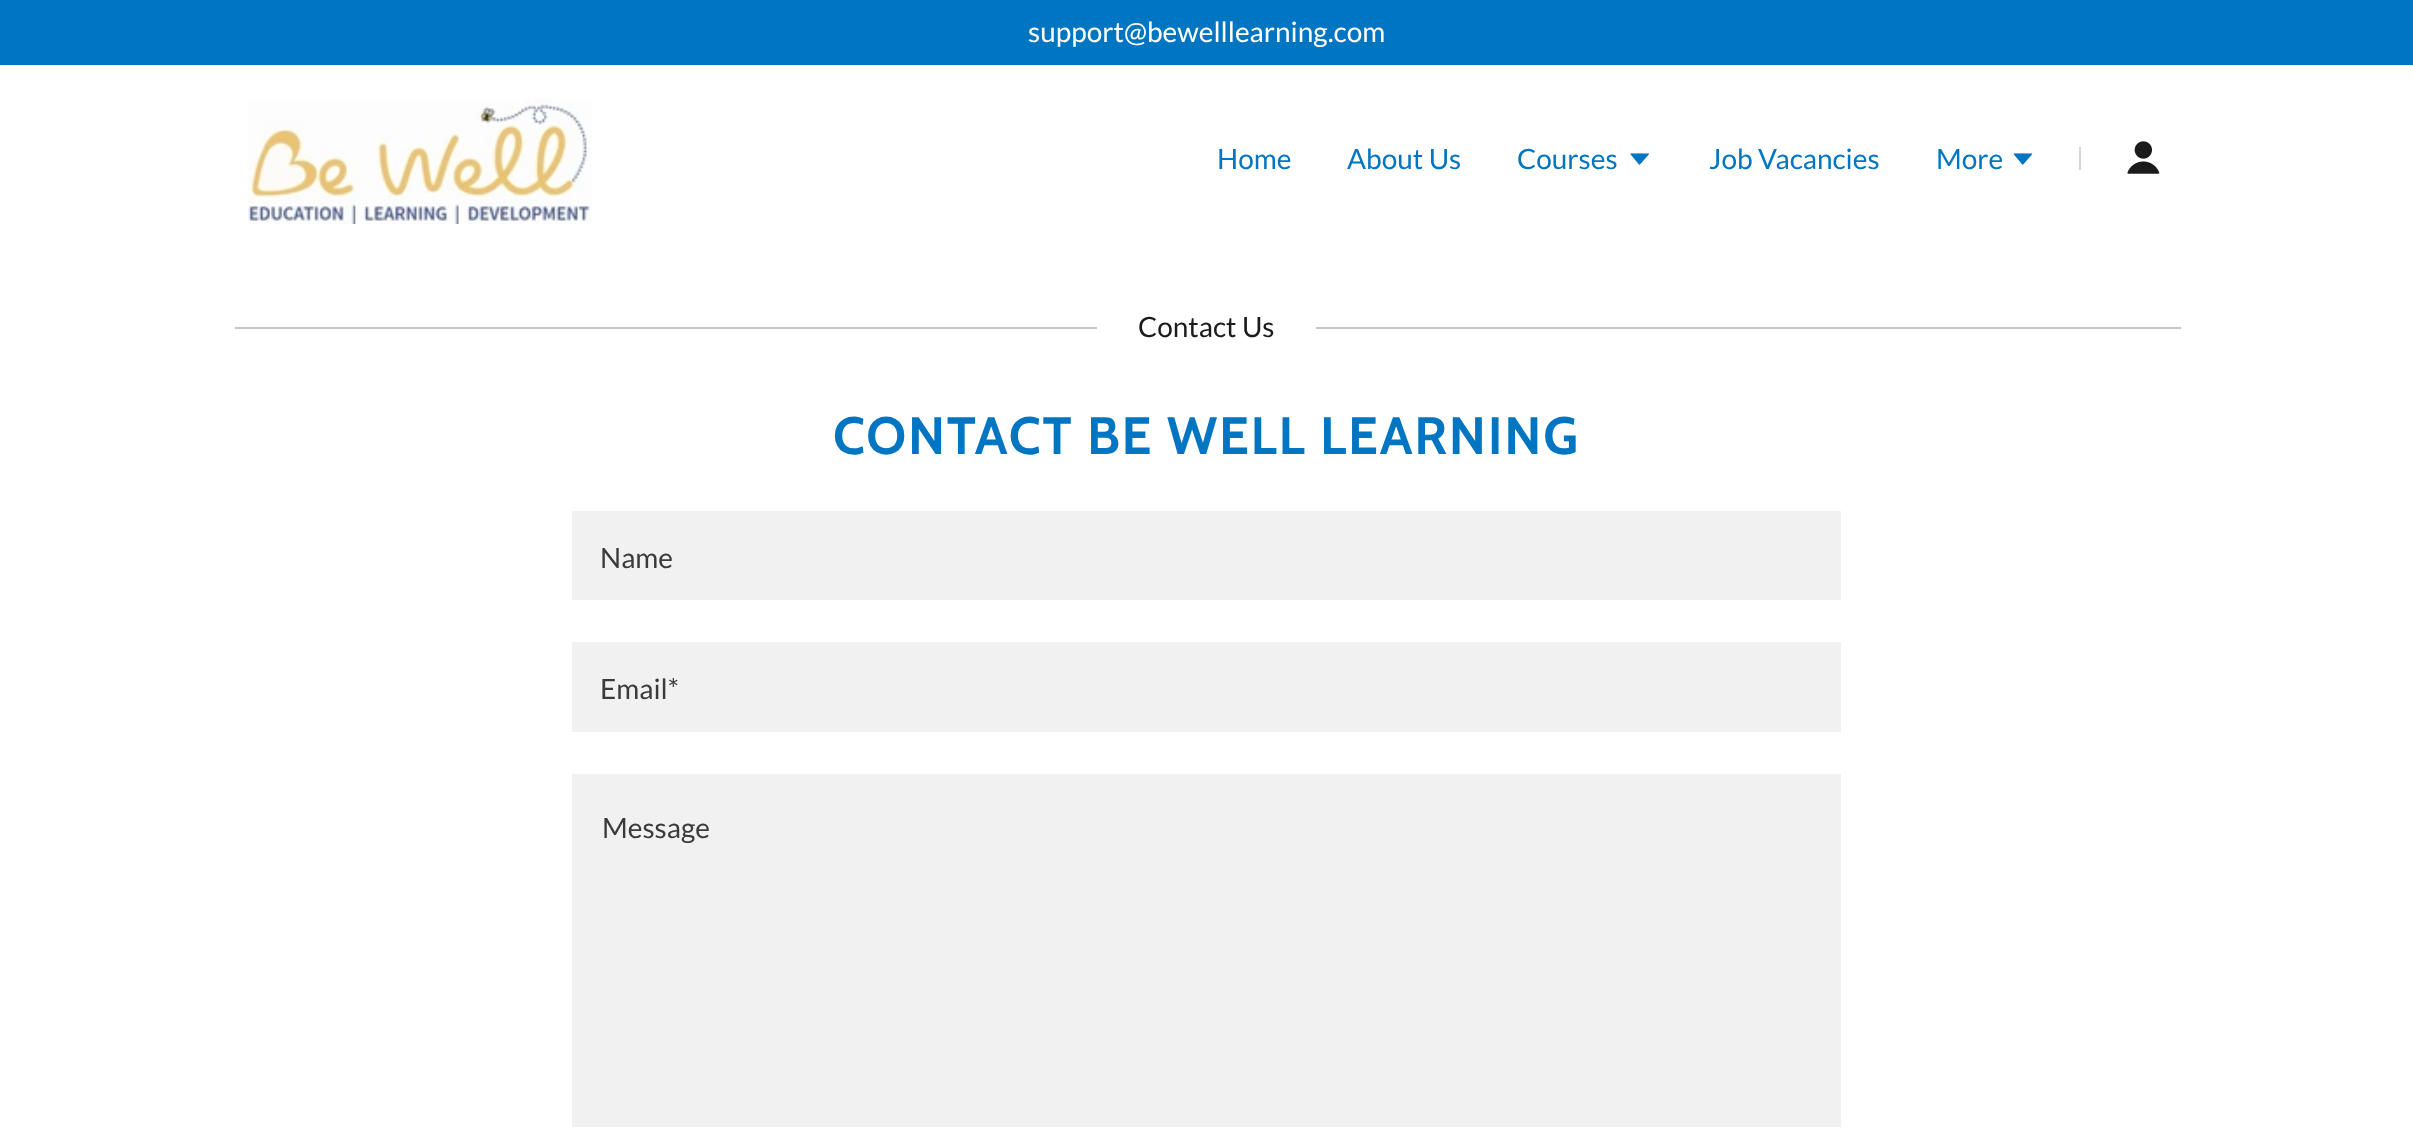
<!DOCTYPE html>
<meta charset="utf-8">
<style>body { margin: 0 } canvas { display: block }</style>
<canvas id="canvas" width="2413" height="1131"></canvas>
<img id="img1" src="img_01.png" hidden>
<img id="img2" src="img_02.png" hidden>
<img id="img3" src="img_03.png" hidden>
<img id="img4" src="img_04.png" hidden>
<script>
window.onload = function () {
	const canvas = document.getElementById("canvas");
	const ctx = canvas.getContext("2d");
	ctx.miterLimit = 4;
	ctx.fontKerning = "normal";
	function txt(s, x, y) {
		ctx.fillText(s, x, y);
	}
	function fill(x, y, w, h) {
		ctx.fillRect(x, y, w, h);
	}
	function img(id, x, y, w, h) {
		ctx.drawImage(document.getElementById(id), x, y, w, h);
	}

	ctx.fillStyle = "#FFFFFF";
	fill(0, 0, 2413, 1131);
	ctx.fillStyle = "#0075C1";
	fill(0, 0, 2413, 65);
	img("img1", 248, 99, 344, 125);
	img("img2", 1630, 153, 19, 12);
	img("img3", 2013, 153, 20, 12);
	ctx.fillStyle = "#D4D4D4";
	fill(2079, 147, 2, 23);
	img("img4", 2127, 141, 33, 33);
	ctx.fillStyle = "#C6C6C6";
	fill(235, 327, 862, 2);
	fill(1316, 327, 865, 2);
	ctx.fillStyle = "#F1F1F1";
	fill(572, 511, 1269, 89);
	fill(572, 642, 1269, 90);
	fill(572, 774, 1269, 353);
	ctx.font = "28px Lato";
	ctx.fillStyle = "#FFFFFF";
	txt("support@bewelllearning.com", 1028, 42);
	ctx.fillStyle = "#0075C1";
	txt("Home", 1217, 169);
	txt("About Us", 1347, 169);
	txt("Courses", 1517, 169);
	txt("Job Vacancies", 1709, 169);
	txt("More", 1936, 169);
	ctx.fillStyle = "#1B1B1B";
	txt("Contact Us", 1138, 337);
	ctx.letterSpacing = "1.75px";
	ctx.font = "bold 52.5px Cabin";
	ctx.fillStyle = "#0075C1";
	txt("CONTACT BE WELL LEARNING", 833, 454);
	ctx.letterSpacing = "0px";
	ctx.font = "28px Lato";
	ctx.fillStyle = "#3B3B3B";
	txt("Name", 600, 568);
	txt("Email*", 600, 699);
	txt("Message", 602, 838);
};
</script>
